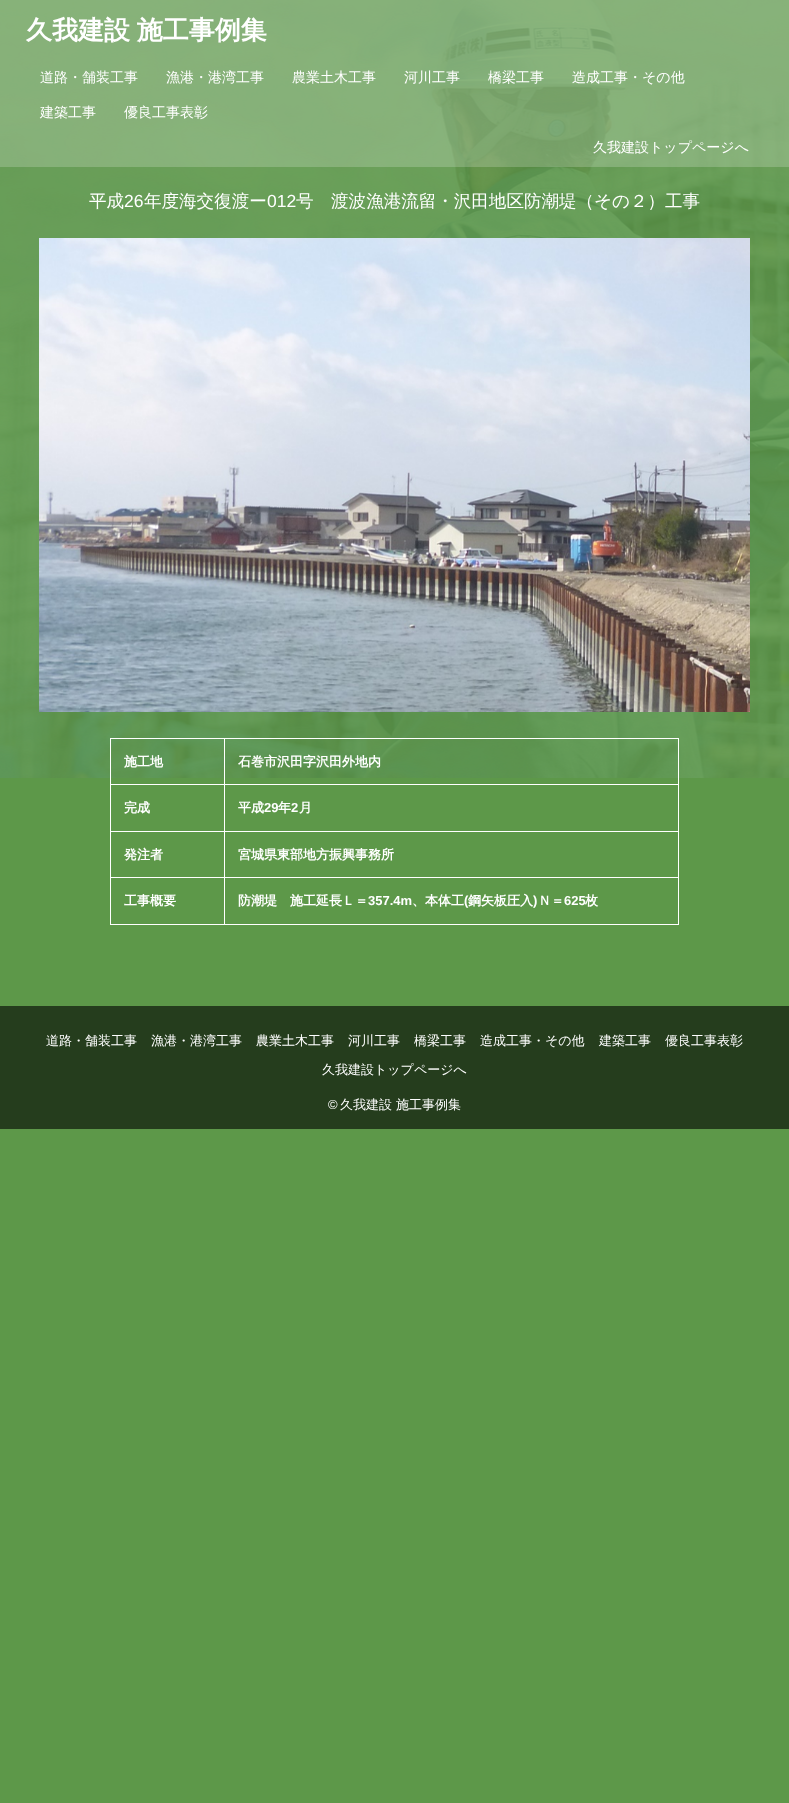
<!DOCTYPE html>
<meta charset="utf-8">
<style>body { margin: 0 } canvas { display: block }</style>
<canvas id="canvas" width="789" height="1803"></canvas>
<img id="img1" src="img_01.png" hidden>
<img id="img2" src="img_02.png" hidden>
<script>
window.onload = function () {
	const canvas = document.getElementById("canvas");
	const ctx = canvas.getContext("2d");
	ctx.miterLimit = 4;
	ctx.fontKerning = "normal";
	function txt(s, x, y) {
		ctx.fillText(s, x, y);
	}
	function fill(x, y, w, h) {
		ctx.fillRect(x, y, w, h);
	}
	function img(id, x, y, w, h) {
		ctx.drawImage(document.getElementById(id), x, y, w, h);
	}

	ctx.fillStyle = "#5D9849";
	fill(0, 0, 789, 1803);
	img("img1", 0, 0, 789, 778);
	ctx.fillStyle = "rgba(255, 255, 255, 0.2)";
	fill(0, 0, 789, 167);
	img("img2", 39, 238, 711, 474);
	ctx.fillStyle = "#FFFFFF";
	fill(110, 738, 569, 1);
	fill(110, 738, 1, 187);
	fill(678, 738, 1, 187);
	fill(224, 924, 455, 1);
	fill(224, 877, 1, 48);
	fill(224, 877, 455, 1);
	fill(224, 831, 1, 47);
	fill(224, 831, 455, 1);
	fill(224, 784, 1, 48);
	fill(224, 784, 455, 1);
	fill(224, 738, 1, 47);
	fill(110, 784, 115, 1);
	fill(110, 831, 115, 1);
	fill(110, 877, 115, 1);
	fill(110, 924, 115, 1);
	ctx.fillStyle = "#253D1D";
	fill(0, 1006, 789, 123);
	ctx.wordSpacing = "-1px";
	ctx.font = "bold 26px WenQuanYi Zen Hei";
	ctx.fillStyle = "#FFFFFF";
	txt("久我建設 施工事例集", 26, 39);
	ctx.wordSpacing = "0px";
	ctx.font = "500 14px WenQuanYi Zen Hei";
	txt("道路・舗装工事", 40, 82);
	txt("漁港・港湾工事", 166, 82);
	txt("農業土木工事", 292, 82);
	txt("河川工事", 404, 82);
	txt("橋梁工事", 488, 82);
	txt("造成工事・その他", 572, 82);
	txt("建築工事", 40, 117);
	txt("優良工事表彰", 124, 117);
	txt("久我建設トップページへ", 593, 152);
	ctx.font = "500 17.55px WenQuanYi Zen Hei";
	txt("平成", 89, 207);
	ctx.font = "17.55px Liberation Sans";
	txt("26", 124, 207);
	ctx.font = "500 17.55px WenQuanYi Zen Hei";
	txt("年度海交復渡ー", 144, 207);
	ctx.font = "17.55px Liberation Sans";
	txt("012", 267, 207);
	ctx.font = "500 17.55px WenQuanYi Zen Hei";
	txt("号　渡波漁港流留・沢田地区防潮堤（その２）工事", 296, 207);
	ctx.font = "bold 13px WenQuanYi Zen Hei";
	txt("施工地", 124, 766);
	txt("石巻市沢田字沢田外地内", 238, 766);
	txt("完成", 124, 812);
	txt("平成", 238, 812);
	ctx.font = "bold 13px Liberation Sans";
	txt("29", 264, 812);
	ctx.font = "bold 13px WenQuanYi Zen Hei";
	txt("年", 278, 812);
	ctx.font = "bold 13px Liberation Sans";
	txt("2", 291, 812);
	ctx.font = "bold 13px WenQuanYi Zen Hei";
	txt("月", 299, 812);
	txt("発注者", 124, 859);
	txt("宮城県東部地方振興事務所", 238, 859);
	txt("工事概要", 124, 905);
	txt("防潮堤　施工延長Ｌ＝", 238, 905);
	ctx.font = "bold 13px Liberation Sans";
	txt("357.4m", 368, 905);
	ctx.font = "bold 13px WenQuanYi Zen Hei";
	txt("、本体工", 412, 905);
	ctx.font = "bold 13px Liberation Sans";
	txt("(", 464, 905);
	ctx.font = "bold 13px WenQuanYi Zen Hei";
	txt("鋼矢板圧入", 468, 905);
	ctx.font = "bold 13px Liberation Sans";
	txt(")", 533, 905);
	ctx.font = "bold 13px WenQuanYi Zen Hei";
	txt("Ｎ＝", 538, 905);
	ctx.font = "bold 13px Liberation Sans";
	txt("625", 564, 905);
	ctx.font = "bold 13px WenQuanYi Zen Hei";
	txt("枚", 585, 905);
	ctx.font = "500 13px WenQuanYi Zen Hei";
	txt("道路・舗装工事", 46, 1045);
	txt("漁港・港湾工事", 151, 1045);
	txt("農業土木工事", 256, 1045);
	txt("河川工事", 348, 1045);
	txt("橋梁工事", 414, 1045);
	txt("造成工事・その他", 480, 1045);
	txt("建築工事", 599, 1045);
	txt("優良工事表彰", 665, 1045);
	txt("久我建設トップページへ", 322, 1074);
	ctx.font = "13px Liberation Sans";
	txt("©", 328, 1109);
	ctx.font = "500 13px WenQuanYi Zen Hei";
	txt("久我建設 施工事例集", 340, 1109);
};
</script>
